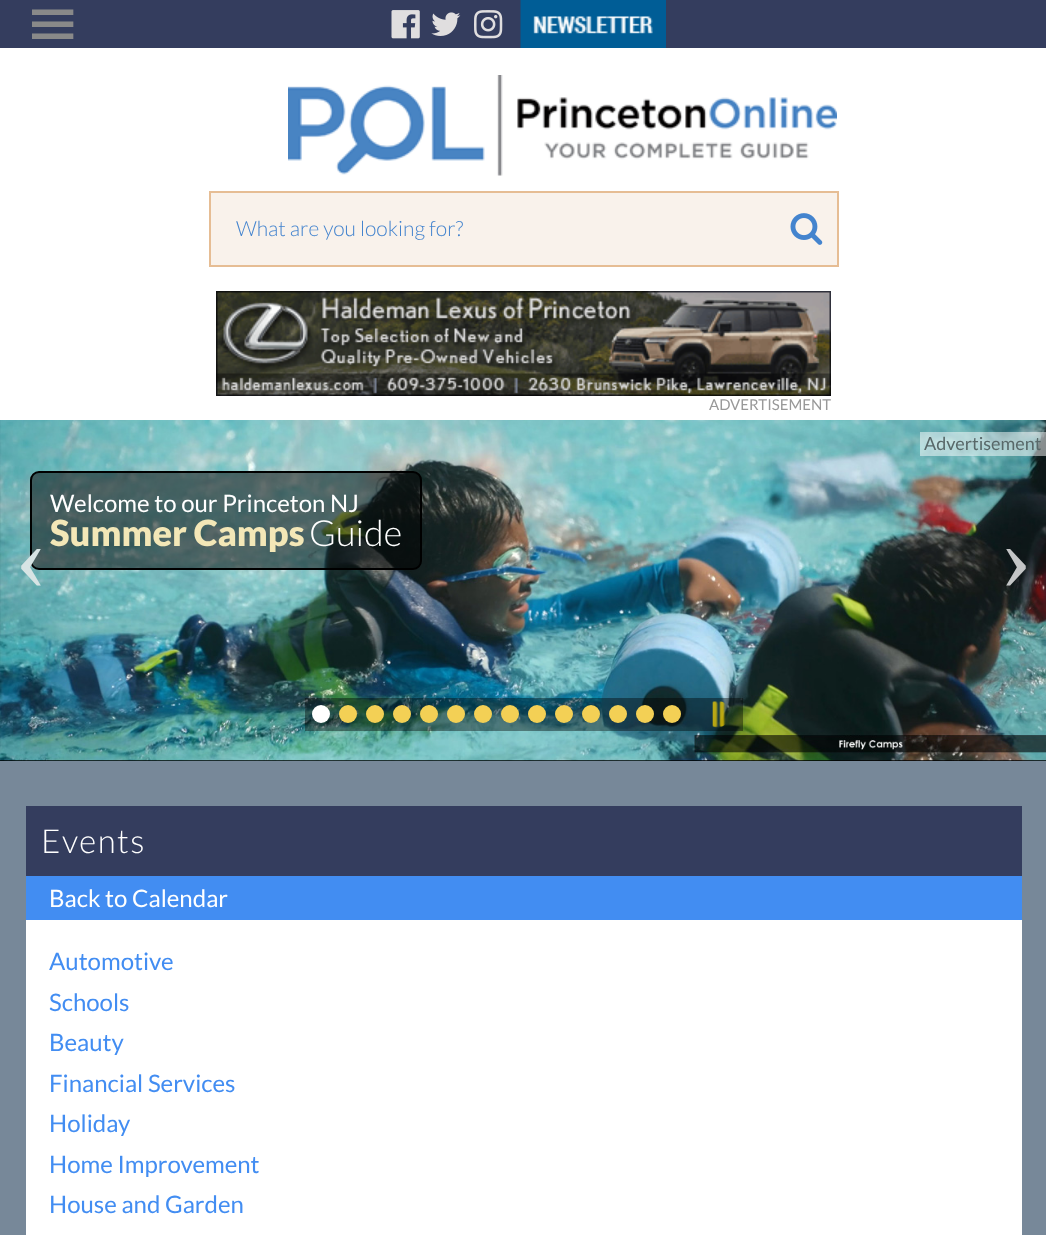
<!DOCTYPE html>
<meta charset="utf-8">
<style>body { margin: 0 } canvas { display: block }</style>
<canvas id="canvas" width="1046" height="1235"></canvas>
<img id="img1" src="img_01.png" hidden>
<img id="img2" src="img_02.png" hidden>
<img id="img3" src="img_03.png" hidden>
<img id="img4" src="img_04.png" hidden>
<img id="img5" src="img_05.png" hidden>
<img id="img6" src="img_06.png" hidden>
<img id="img7" src="img_07.png" hidden>
<img id="img8" src="img_08.png" hidden>
<img id="img9" src="img_09.png" hidden>
<script>
window.onload = function () {
	const canvas = document.getElementById("canvas");
	const ctx = canvas.getContext("2d");
	ctx.miterLimit = 4;
	ctx.fontKerning = "normal";
	function txt(s, x, y) {
		ctx.fillText(s, x, y);
	}
	function fill(x, y, w, h) {
		ctx.fillRect(x, y, w, h);
	}
	function img(id, x, y, w, h) {
		ctx.drawImage(document.getElementById(id), x, y, w, h);
	}

	ctx.fillStyle = "#FFFFFF";
	fill(0, 0, 1046, 1235);
	ctx.fillStyle = "#343D5E";
	fill(0, 0, 1046, 48);
	img("img1", 391, 10, 29, 29);
	img("img2", 431, 12, 30, 24);
	img("img3", 474, 10, 29, 29);
	img("img4", 520, 0, 146, 48);
	img("img5", 288, 75, 549, 101);
	ctx.fillStyle = "#F9F2EB";
	ctx.beginPath();
	ctx.rect(210, 192, 628, 74);
	ctx.fill();
	ctx.strokeStyle = "#E6BD94";
	ctx.lineWidth = 2;
	ctx.stroke();
	img("img6", 790, 213, 33, 32);
	img("img7", 216, 291, 615, 105);
	ctx.fillStyle = "#000000";
	fill(0, 760, 1046, 1);
	img("img8", 0, 420, 1046, 341);
	ctx.fillStyle = "rgba(255, 255, 255, 0.5)";
	fill(920, 432, 126, 24);
	ctx.fillStyle = "rgba(0, 0, 0, 0.5)";
	ctx.beginPath();
	ctx.roundRect(31, 472, 390, 97, 8);
	ctx.fill();
	ctx.strokeStyle = "#000000";
	ctx.stroke();
	ctx.fillStyle = "rgba(0, 0, 0, 0.4)";
	fill(305, 698, 438, 33);
	ctx.fillStyle = "#FFFFFF";
	ctx.beginPath();
	ctx.arc(321, 714, 9, 0, Math.PI * 2);
	ctx.fill();
	ctx.fillStyle = "#F3D055";
	ctx.beginPath();
	ctx.arc(348, 714, 9, 0, Math.PI * 2);
	ctx.fill();
	ctx.beginPath();
	ctx.arc(375, 714, 9, 0, Math.PI * 2);
	ctx.fill();
	ctx.beginPath();
	ctx.arc(402, 714, 9, 0, Math.PI * 2);
	ctx.fill();
	ctx.beginPath();
	ctx.arc(429, 714, 9, 0, Math.PI * 2);
	ctx.fill();
	ctx.beginPath();
	ctx.arc(456, 714, 9, 0, Math.PI * 2);
	ctx.fill();
	ctx.beginPath();
	ctx.arc(483, 714, 9, 0, Math.PI * 2);
	ctx.fill();
	ctx.beginPath();
	ctx.arc(510, 714, 9, 0, Math.PI * 2);
	ctx.fill();
	ctx.beginPath();
	ctx.arc(537, 714, 9, 0, Math.PI * 2);
	ctx.fill();
	ctx.beginPath();
	ctx.arc(564, 714, 9, 0, Math.PI * 2);
	ctx.fill();
	ctx.beginPath();
	ctx.arc(591, 714, 9, 0, Math.PI * 2);
	ctx.fill();
	ctx.beginPath();
	ctx.arc(618, 714, 9, 0, Math.PI * 2);
	ctx.fill();
	ctx.beginPath();
	ctx.arc(645, 714, 9, 0, Math.PI * 2);
	ctx.fill();
	ctx.beginPath();
	ctx.arc(672, 714, 9, 0, Math.PI * 2);
	ctx.fill();
	img("img9", 712, 701, 14, 27);
	ctx.fillStyle = "#778899";
	fill(0, 761, 1046, 474);
	ctx.fillStyle = "#343D5E";
	fill(26, 806, 996, 70);
	ctx.fillStyle = "#428DF2";
	fill(26, 876, 996, 44);
	ctx.fillStyle = "#FFFFFF";
	fill(26, 920, 996, 315);
	ctx.font = "66px DejaVu Sans";
	ctx.fillStyle = "#898989";
	txt("≡", 25, 45);
	ctx.font = "300 21px Lato";
	ctx.fillStyle = "#4484CE";
	txt("What are you looking for?", 236, 236);
	ctx.font = "15px Lato";
	ctx.fillStyle = "#999999";
	txt("ADVERTISEMENT", 709, 410);
	ctx.font = "18px Lato";
	ctx.fillStyle = "#586869";
	txt("Advertisement", 924, 450);
	ctx.font = "24px Lato";
	ctx.fillStyle = "#FFFFFF";
	txt("Welcome to our Princeton NJ", 50, 512);
	ctx.font = "900 36px Lato";
	ctx.fillStyle = "#F3E7B7";
	txt("Summer Camps", 50, 546);
	ctx.font = "300 36px Lato";
	ctx.fillStyle = "#FFFFFF";
	txt("Guide", 309, 546);
	ctx.font = "96px Liberation Serif";
	ctx.fillStyle = "#D7E4E4";
	txt("‹", 15, 589);
	ctx.fillStyle = "#C3C5C6";
	txt("›", 1000, 589);
	ctx.letterSpacing = "1.5px";
	ctx.font = "300 33px Lato";
	ctx.fillStyle = "#FFFFFF";
	txt("Events", 41, 853);
	ctx.letterSpacing = "0px";
	ctx.font = "24px Lato";
	txt("Back to Calendar", 49, 907);
	ctx.fillStyle = "#428DF2";
	txt("Automotive", 49, 970);
	txt("Schools", 49, 1011);
	txt("Beauty", 49, 1051);
	txt("Financial Services", 49, 1092);
	txt("Holiday", 49, 1132);
	txt("Home Improvement", 49, 1173);
	txt("House and Garden", 49, 1213);
};
</script>
